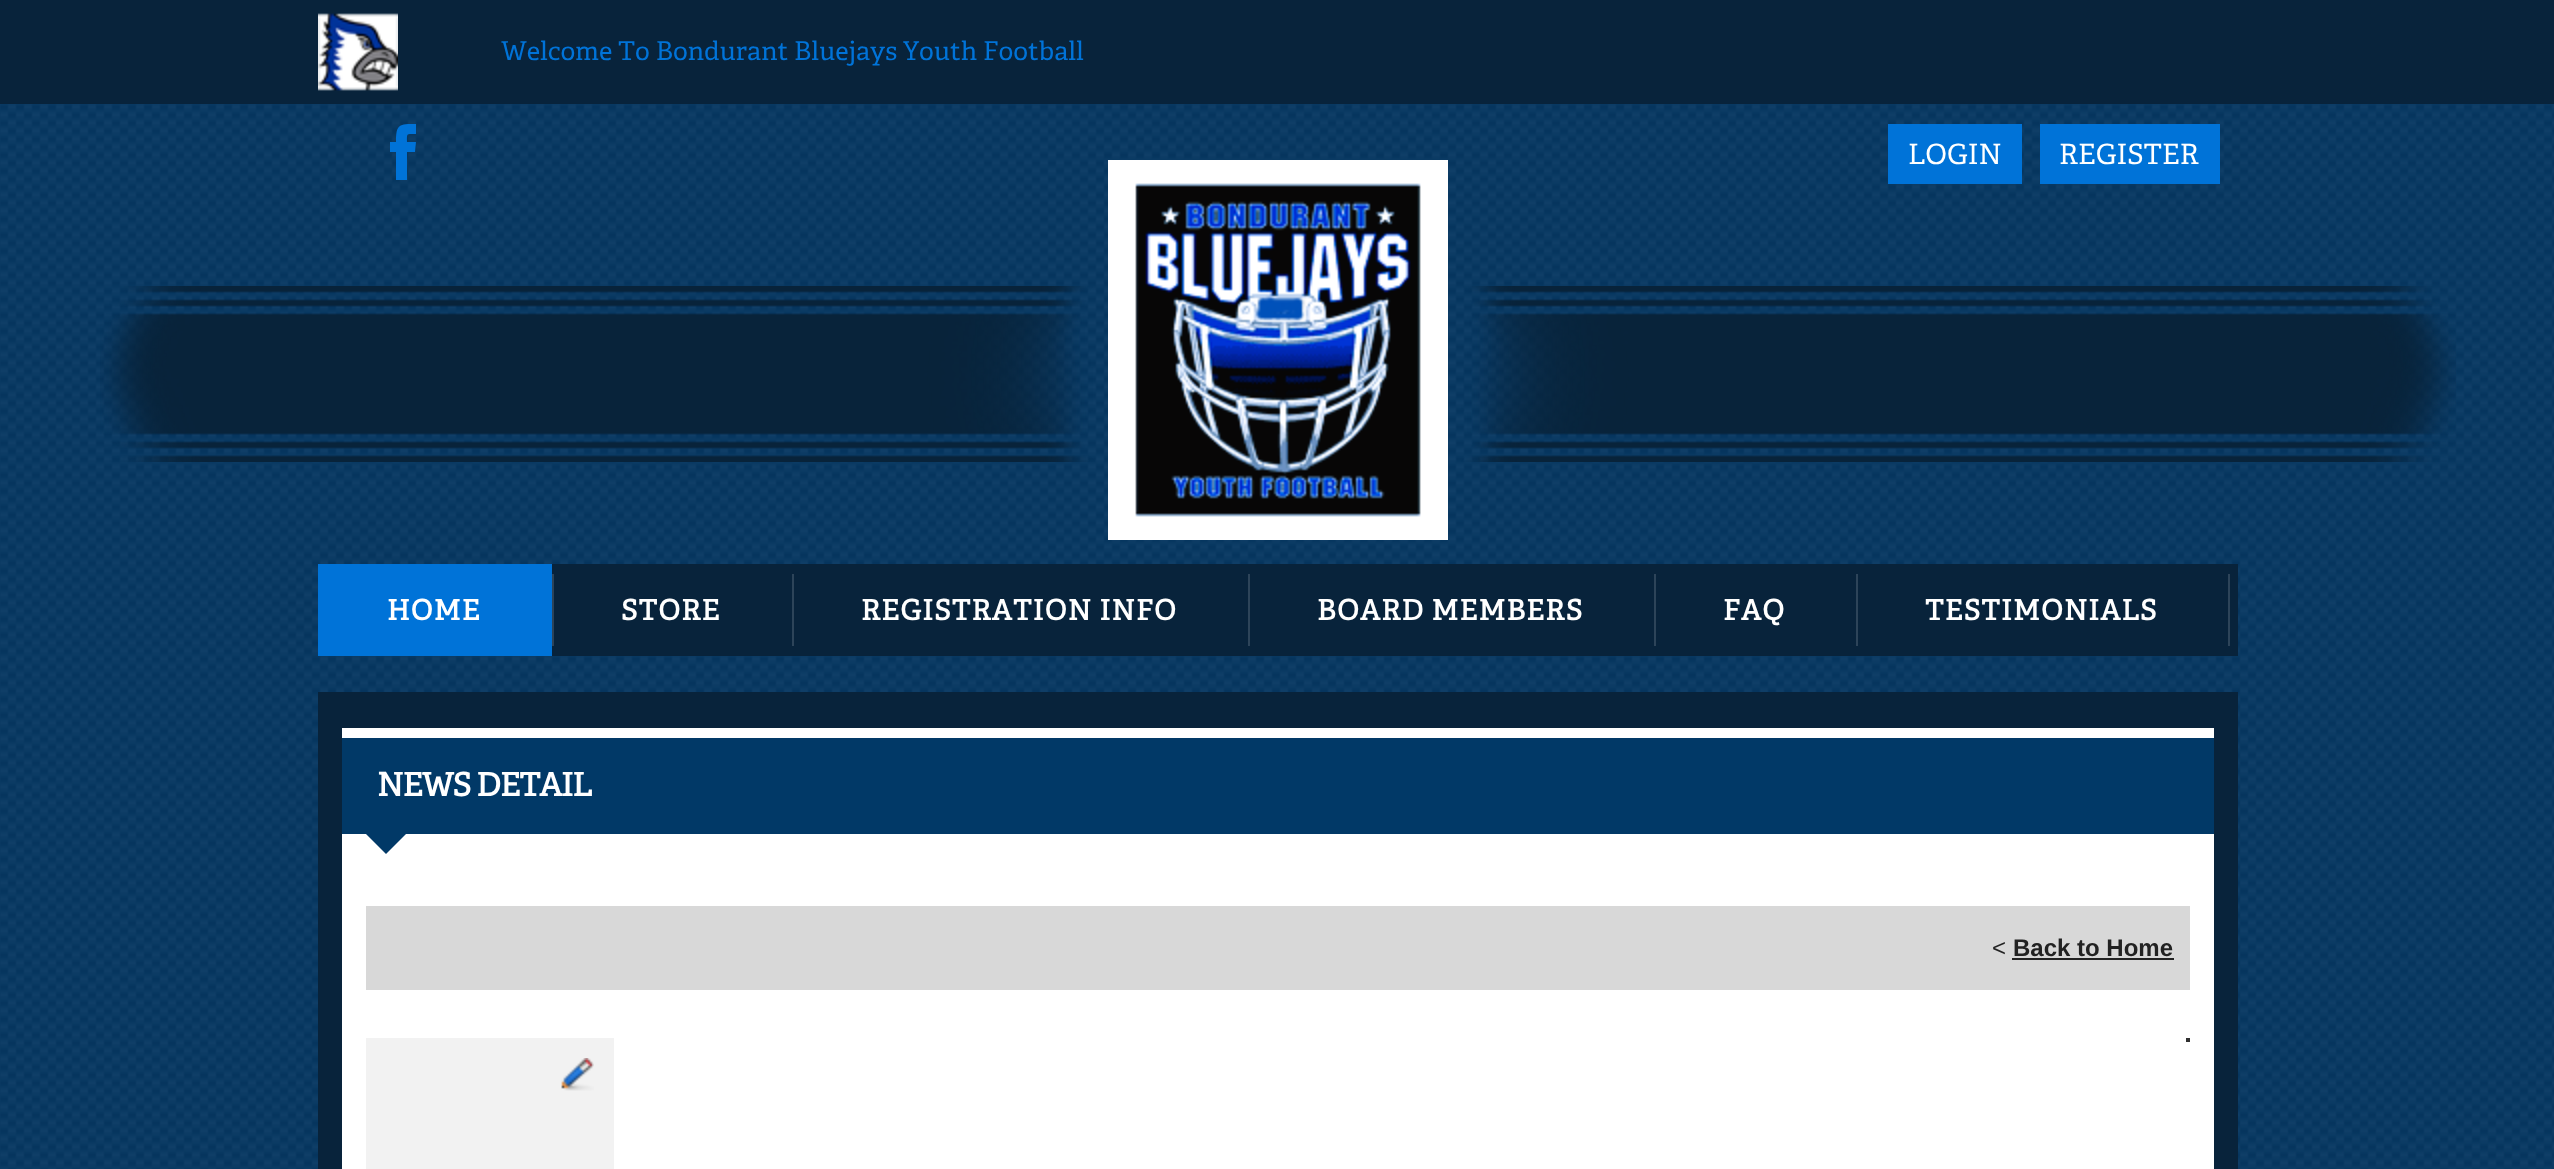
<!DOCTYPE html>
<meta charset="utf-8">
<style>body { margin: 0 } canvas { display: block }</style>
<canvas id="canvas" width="2554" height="1169"></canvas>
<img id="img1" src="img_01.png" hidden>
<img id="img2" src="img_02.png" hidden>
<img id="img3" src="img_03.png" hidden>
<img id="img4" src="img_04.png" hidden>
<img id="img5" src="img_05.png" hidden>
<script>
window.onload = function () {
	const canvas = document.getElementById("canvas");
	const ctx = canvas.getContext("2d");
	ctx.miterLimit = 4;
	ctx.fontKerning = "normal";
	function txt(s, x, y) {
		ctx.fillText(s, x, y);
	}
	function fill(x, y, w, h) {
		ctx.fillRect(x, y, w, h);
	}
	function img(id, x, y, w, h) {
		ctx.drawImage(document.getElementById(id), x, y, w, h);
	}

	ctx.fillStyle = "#FFFFFF";
	fill(0, 0, 2554, 1169);
	img("img1", 0, 104, 2554, 1065);
	ctx.fillStyle = "#08233B";
	fill(0, 0, 2554, 104);
	img("img2", 318, 13, 80, 78);
	ctx.fillStyle = "#0073D8";
	ctx.beginPath();
	ctx.moveTo(415, 152);
	ctx.lineTo(407, 152);
	ctx.lineTo(407, 180);
	ctx.lineTo(396, 180);
	ctx.lineTo(396, 152);
	ctx.lineTo(390, 152);
	ctx.lineTo(390, 142);
	ctx.lineTo(396, 142);
	ctx.bezierCurveTo(396, 124, 399, 124, 416, 124);
	ctx.lineTo(416, 134);
	ctx.bezierCurveTo(406, 134, 407, 133, 407, 142);
	ctx.lineTo(416, 142);
	ctx.closePath();
	ctx.fill();
	fill(1888, 124, 134, 60);
	fill(2040, 124, 180, 60);
	img("img3", 100, 286, 2356, 176);
	img("img4", 1108, 160, 340, 380);
	ctx.fillStyle = "#08233B";
	fill(552, 564, 1686, 92);
	ctx.fillStyle = "#0073D8";
	fill(318, 564, 234, 92);
	ctx.fillStyle = "#2D4459";
	fill(552, 574, 2, 72);
	fill(792, 574, 2, 72);
	fill(1248, 574, 2, 72);
	fill(1654, 574, 2, 72);
	fill(1856, 574, 2, 72);
	fill(2228, 574, 2, 72);
	ctx.fillStyle = "#08233B";
	fill(318, 692, 1920, 477);
	ctx.fillStyle = "#013967";
	fill(342, 738, 1872, 96);
	ctx.fillStyle = "#FFFFFF";
	fill(342, 728, 1872, 10);
	fill(342, 834, 1872, 335);
	ctx.fillStyle = "#013967";
	ctx.beginPath();
	ctx.moveTo(366, 834);
	ctx.lineTo(406, 834);
	ctx.lineTo(386, 854);
	ctx.closePath();
	ctx.fill();
	ctx.fillStyle = "#D8D8D8";
	fill(366, 906, 1824, 84);
	ctx.fillStyle = "#222222";
	fill(2012, 958, 162, 2);
	ctx.fillStyle = "#F2F2F2";
	fill(366, 1038, 248, 131);
	img("img5", 561, 1058, 33, 33);
	ctx.fillStyle = "#303030";
	fill(2186, 1038, 4, 4);
	ctx.font = "26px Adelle";
	ctx.fillStyle = "#0073D8";
	txt("Welcome To Bondurant Bluejays Youth Football", 501, 60);
	ctx.font = "28px Adelle";
	ctx.fillStyle = "#FFFFFF";
	txt("LOGIN", 1908, 164);
	txt("REGISTER", 2059, 164);
	ctx.letterSpacing = "1.25px";
	ctx.font = "bold 28px Adelle";
	txt("HOME", 387, 620);
	txt("STORE", 621, 620);
	txt("REGISTRATION INFO", 861, 620);
	txt("BOARD MEMBERS", 1317, 620);
	txt("FAQ", 1723, 620);
	txt("TESTIMONIALS", 1925, 620);
	ctx.letterSpacing = "-1px";
	ctx.font = "bold 32px Adelle";
	txt("NEWS DETAIL", 377, 796);
	ctx.letterSpacing = "0px";
	ctx.font = "24px Liberation Sans";
	ctx.fillStyle = "#222222";
	txt("<", 1992, 956);
	ctx.font = "bold 24px Liberation Sans";
	txt("Back to Home", 2013, 956);
};
</script>
